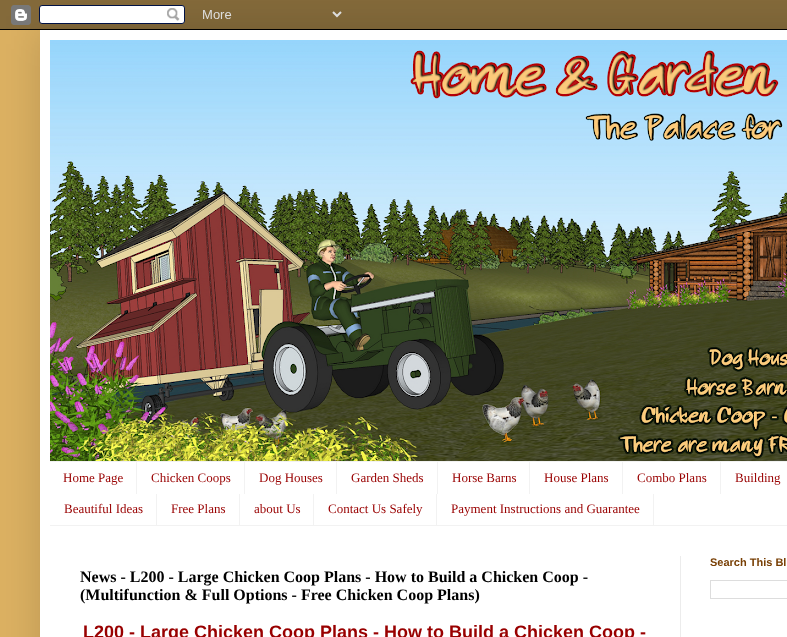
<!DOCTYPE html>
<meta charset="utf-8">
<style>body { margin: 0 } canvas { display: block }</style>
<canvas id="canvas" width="787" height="637"></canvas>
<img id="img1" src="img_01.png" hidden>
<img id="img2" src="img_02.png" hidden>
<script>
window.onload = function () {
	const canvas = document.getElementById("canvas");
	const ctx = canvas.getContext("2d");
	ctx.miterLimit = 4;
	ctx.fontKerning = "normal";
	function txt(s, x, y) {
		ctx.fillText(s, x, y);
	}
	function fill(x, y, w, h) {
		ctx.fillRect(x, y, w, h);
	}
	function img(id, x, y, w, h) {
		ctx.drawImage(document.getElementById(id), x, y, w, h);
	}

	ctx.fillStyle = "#DCB162";
	fill(0, 0, 787, 637);
	ctx.fillStyle = "rgba(0, 0, 0, 0.15)";
	ctx.filter = "blur(20px)";
	ctx.beginPath();
	ctx.rect(40, 30, 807, 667);
	ctx.fill();
	ctx.filter = "none";
	img("img1", 0, 0, 787, 30);
	ctx.fillStyle = "#FFFFFF";
	fill(40, 30, 747, 607);
	img("img2", 50, 40, 737, 421);
	ctx.fillStyle = "#F2F2F2";
	fill(50, 461, 737, 1);
	fill(50, 525, 737, 1);
	fill(136, 462, 1, 32);
	fill(244, 462, 1, 32);
	fill(336, 462, 1, 32);
	fill(437, 462, 1, 32);
	fill(529, 462, 1, 32);
	fill(622, 462, 1, 32);
	fill(720, 462, 1, 32);
	fill(156, 494, 1, 31);
	fill(239, 494, 1, 31);
	fill(313, 494, 1, 31);
	fill(436, 494, 1, 31);
	fill(653, 494, 1, 31);
	ctx.fillStyle = "#ECECEC";
	fill(680, 556, 1, 81);
	ctx.strokeStyle = "#DDDDDD";
	ctx.strokeRect(710.5, 580.5, 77, 18);
	ctx.font = "13px Liberation Serif";
	ctx.fillStyle = "#990000";
	txt("Home Page", 63, 482);
	txt("Chicken Coops", 151, 482);
	txt("Dog Houses", 259, 482);
	txt("Garden Sheds", 351, 482);
	txt("Horse Barns", 452, 482);
	txt("House Plans", 544, 482);
	txt("Combo Plans", 637, 482);
	txt("Building", 735, 482);
	txt("Beautiful Ideas", 64, 513);
	txt("Free Plans", 171, 513);
	txt("about Us", 254, 513);
	txt("Contact Us Safely", 328, 513);
	txt("Payment Instructions and Guarantee", 451, 513);
	ctx.font = "bold 11px Liberation Sans";
	ctx.fillStyle = "#783F04";
	txt("Search This Bl", 710, 566);
	ctx.font = "bold 16px Liberation Serif";
	ctx.fillStyle = "#000000";
	txt("News - L200 - Large Chicken Coop Plans - How to Build a Chicken Coop -", 80, 582);
	txt("(Multifunction & Full Options - Free Chicken Coop Plans)", 80, 600);
	ctx.font = "bold 18px Liberation Sans";
	ctx.fillStyle = "#990000";
	txt("L200 - Large Chicken Coop Plans - How to Build a Chicken Coop -", 83, 638);
};
</script>
